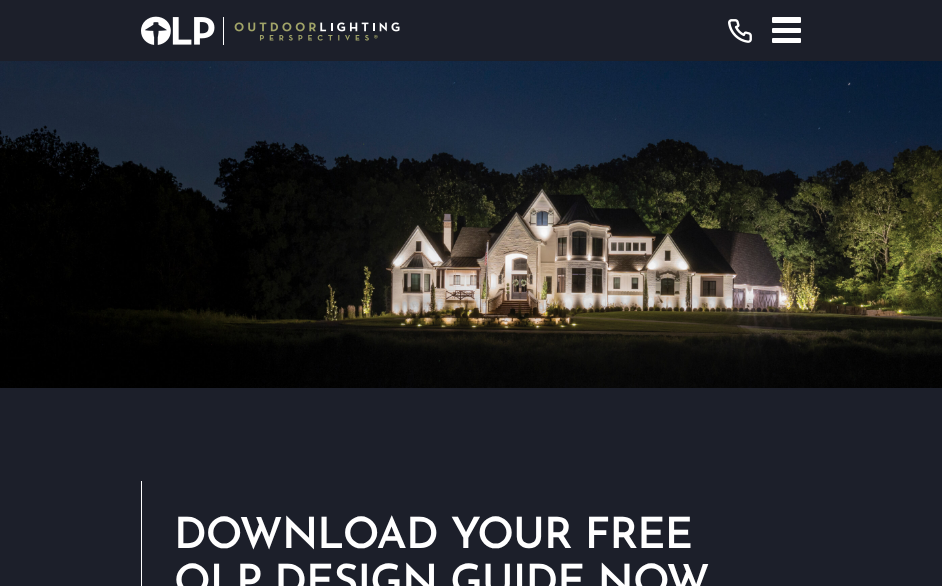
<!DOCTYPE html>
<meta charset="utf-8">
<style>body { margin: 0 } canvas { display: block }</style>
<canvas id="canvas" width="942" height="586"></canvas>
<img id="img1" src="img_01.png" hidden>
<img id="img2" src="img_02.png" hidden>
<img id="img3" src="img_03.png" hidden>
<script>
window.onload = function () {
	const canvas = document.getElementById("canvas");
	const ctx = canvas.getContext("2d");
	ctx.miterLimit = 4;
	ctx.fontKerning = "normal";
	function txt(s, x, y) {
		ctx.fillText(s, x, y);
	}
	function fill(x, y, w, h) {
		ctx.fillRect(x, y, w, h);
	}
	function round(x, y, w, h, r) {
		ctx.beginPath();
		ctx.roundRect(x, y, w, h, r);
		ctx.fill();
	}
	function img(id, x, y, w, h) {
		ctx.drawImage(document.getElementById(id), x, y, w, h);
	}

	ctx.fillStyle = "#1C1F2A";
	fill(0, 0, 942, 586);
	img("img1", 141, 16, 259, 29);
	img("img2", 728, 19, 24, 24);
	ctx.fillStyle = "#FFFFFF";
	round(772, 17, 29, 6, 1);
	round(772, 28, 29, 5, 1);
	round(772, 38, 29, 5, 1);
	img("img3", 0, 61, 942, 327);
	fill(141, 481, 1, 105);
	ctx.letterSpacing = "-0.9px";
	ctx.font = "600 43px Josefin Sans";
	txt("DOWNLOAD YOUR FREE", 174, 548);
	txt("OLP DESIGN GUIDE NOW", 174, 595);
};
</script>
